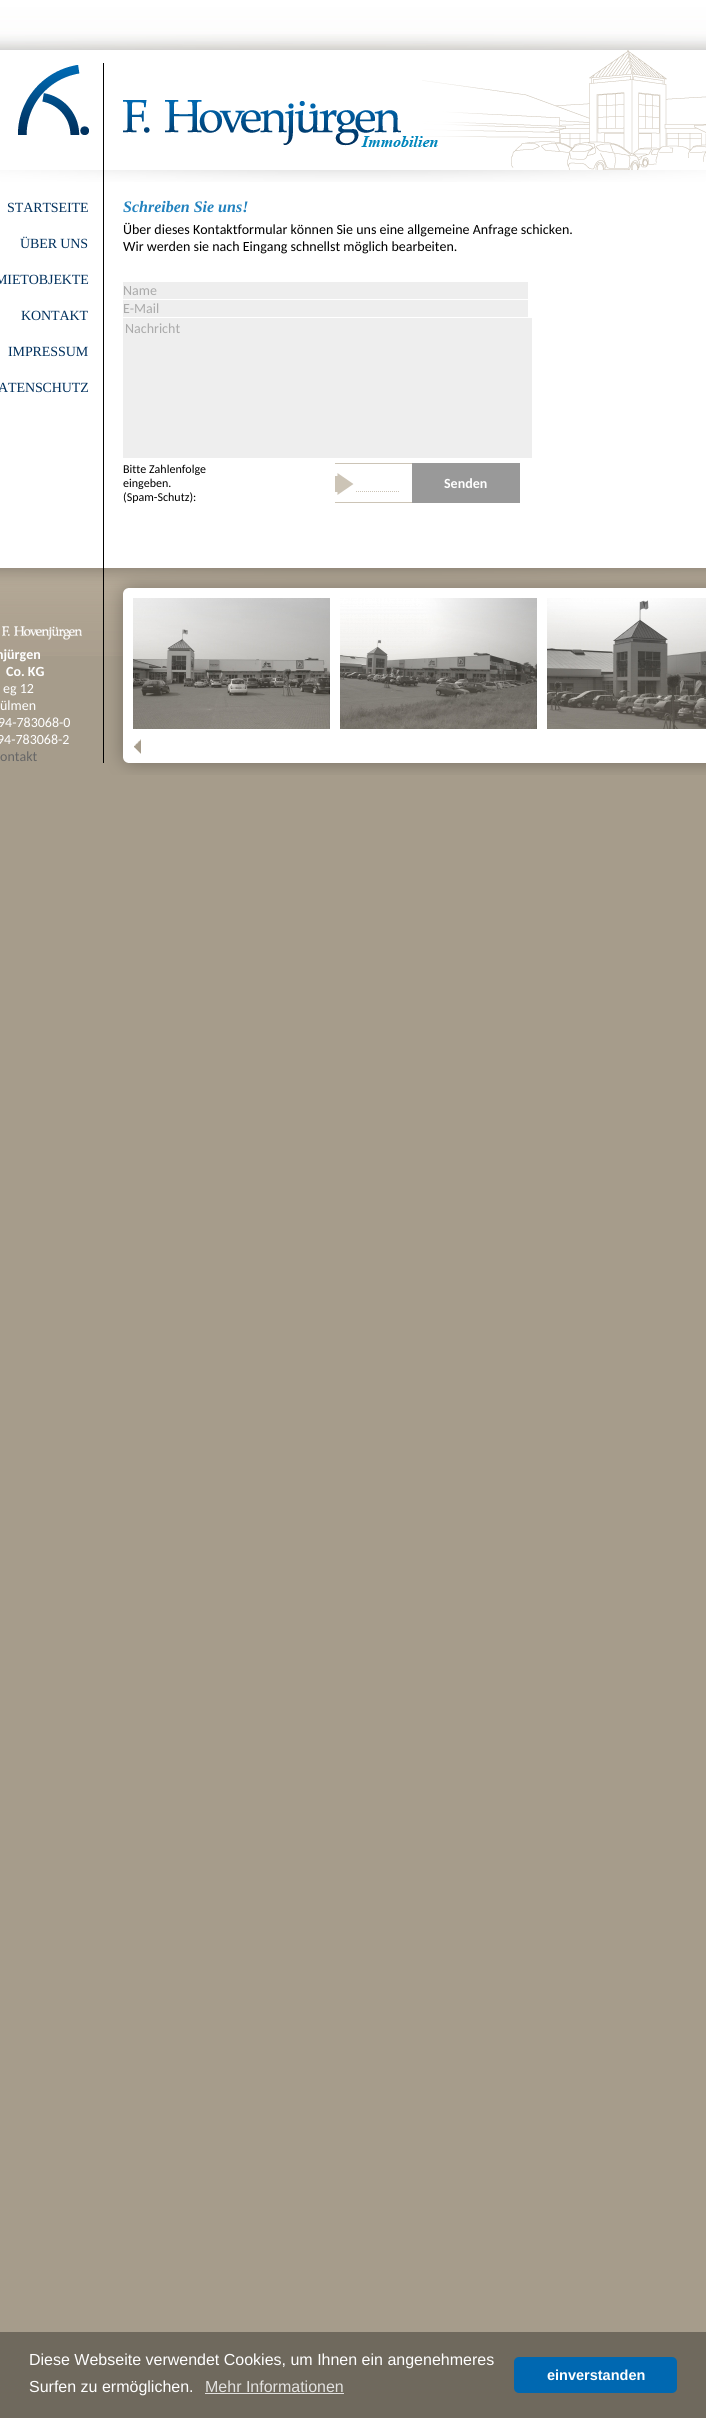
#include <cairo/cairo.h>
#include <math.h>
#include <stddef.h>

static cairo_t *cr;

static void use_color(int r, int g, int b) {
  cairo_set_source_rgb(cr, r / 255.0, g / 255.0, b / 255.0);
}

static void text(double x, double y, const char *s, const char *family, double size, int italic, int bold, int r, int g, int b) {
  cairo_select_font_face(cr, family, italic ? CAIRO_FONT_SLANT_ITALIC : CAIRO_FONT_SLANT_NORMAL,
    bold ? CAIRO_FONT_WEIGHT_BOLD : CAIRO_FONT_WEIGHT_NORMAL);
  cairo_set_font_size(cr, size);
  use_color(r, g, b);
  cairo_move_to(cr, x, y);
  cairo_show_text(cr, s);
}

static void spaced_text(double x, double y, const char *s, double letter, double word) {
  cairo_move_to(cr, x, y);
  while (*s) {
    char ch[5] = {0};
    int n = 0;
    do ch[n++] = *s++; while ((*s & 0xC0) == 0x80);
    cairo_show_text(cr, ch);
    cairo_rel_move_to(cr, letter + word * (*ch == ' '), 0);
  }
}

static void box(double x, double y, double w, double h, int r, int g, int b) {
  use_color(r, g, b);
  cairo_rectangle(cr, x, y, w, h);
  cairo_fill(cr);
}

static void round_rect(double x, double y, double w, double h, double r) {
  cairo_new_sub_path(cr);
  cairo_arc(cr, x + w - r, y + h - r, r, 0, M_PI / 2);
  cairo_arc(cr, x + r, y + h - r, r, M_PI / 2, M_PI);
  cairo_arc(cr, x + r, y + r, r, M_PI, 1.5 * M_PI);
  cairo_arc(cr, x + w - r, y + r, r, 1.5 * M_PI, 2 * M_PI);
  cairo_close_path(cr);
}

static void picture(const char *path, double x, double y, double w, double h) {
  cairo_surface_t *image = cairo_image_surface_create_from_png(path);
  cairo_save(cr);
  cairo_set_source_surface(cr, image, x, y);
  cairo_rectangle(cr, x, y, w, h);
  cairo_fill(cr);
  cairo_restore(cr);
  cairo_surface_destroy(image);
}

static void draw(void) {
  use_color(166, 156, 139);
  cairo_paint(cr);
  picture("img_01.png", 0, 0, 706, 656);
  picture("img_02.png", 0, 34, 706, 136);
  picture("img_03.png", 0, 182, 706, 366);
  picture("img_04.png", 0, 170, 706, 12);
  box(123, 282, 405, 17, 238, 238, 238);
  box(123, 300, 405, 17, 238, 238, 238);
  box(123, 318, 409, 140, 238, 238, 238);
  picture("img_05.png", 335, 463, 77, 40);
  box(412, 463, 108, 40, 153, 153, 153);
  picture("img_06.png", 0, 548, 706, 40);
  picture("img_11.png", 103, 588, 603, 187);
  picture("img_07.png", 133, 598, 197, 131);
  picture("img_08.png", 340, 598, 197, 131);
  picture("img_09.png", 547, 598, 159, 131);
  picture("img_10.png", 134, 739, 7, 15);
  picture("img_12.png", 2, 626, 80, 14);
  box(0, 2332, 706, 86, 111, 105, 93);
  box(205, 2393, 139, 1, 226, 225, 223);
  use_color(0, 104, 177);
  round_rect(514, 2357, 163, 36, 5);
  cairo_fill(cr);
  cairo_select_font_face(cr, "Liberation Serif", CAIRO_FONT_SLANT_NORMAL, CAIRO_FONT_WEIGHT_NORMAL);
  cairo_set_font_size(cr, 14);
  use_color(0, 48, 93);
  spaced_text(7, 212, "STARTSEITE", -0.1, 0);
  spaced_text(20, 248, "ÜBER UNS", -0.1, 0);
  spaced_text(-5, 284, "MIETOBJEKTE", -0.1, 0);
  spaced_text(21, 320, "KONTAKT", -0.1, 0);
  spaced_text(8, 356, "IMPRESSUM", -0.1, 0);
  spaced_text(-2, 392, "ATENSCHUTZ", -0.1, 0);
  text(123, 212, "Schreiben Sie uns!", "Liberation Serif", 16, 1, 1, 34, 130, 190);
  text(123, 234, "Über dieses Kontaktformular können Sie uns eine allgemeine Anfrage schicken.", "Carlito", 14, 0, 0, 0, 0, 0);
  text(123, 251, "Wir werden sie nach Eingang schnellst möglich bearbeiten.", "Carlito", 14, 0, 0, 0, 0, 0);
  text(123, 295, "Name", "Carlito", 14, 0, 0, 170, 170, 170);
  text(123, 313, "E-Mail", "Carlito", 14, 0, 0, 170, 170, 170);
  text(125, 333, "Nachricht", "Carlito", 14, 0, 0, 170, 170, 170);
  text(123, 473, "Bitte Zahlenfolge", "Carlito", 12, 0, 0, 0, 0, 0);
  text(123, 487, "eingeben.", "Carlito", 12, 0, 0, 0, 0, 0);
  text(123, 501, "(Spam-Schutz):", "Carlito", 12, 0, 0, 0, 0, 0);
  text(444, 488, "Senden", "Carlito", 14, 0, 1, 255, 255, 255);
  text(-4, 659, "njürgen", "Carlito", 14, 0, 1, 255, 255, 255);
  text(6, 676, "Co. KG", "Carlito", 14, 0, 1, 255, 255, 255);
  text(3, 693, "eg 12", "Carlito", 14, 0, 0, 255, 255, 255);
  text(0, 710, "ülmen", "Carlito", 14, 0, 0, 255, 255, 255);
  text(-2, 727, "94-783068-0", "Carlito", 14, 0, 0, 255, 255, 255);
  text(-3, 744, "94-783068-2", "Carlito", 14, 0, 0, 255, 255, 255);
  text(0, 761, "ontakt", "Carlito", 14, 0, 0, 102, 102, 102);
  text(29, 2365, "Diese Webseite verwendet Cookies, um Ihnen ein angenehmeres", "Liberation Sans", 16, 0, 0, 255, 255, 255);
  text(29, 2392, "Surfen zu ermöglichen.", "Liberation Sans", 16, 0, 0, 255, 255, 255);
  text(205, 2392, "Mehr Informationen", "Liberation Sans", 16, 0, 0, 226, 225, 223);
  text(547, 2380, "einverstanden", "Liberation Sans", 14.5, 0, 1, 255, 255, 255);
}

int main(void) {
  cairo_surface_t *surface = cairo_image_surface_create(CAIRO_FORMAT_RGB24, 706, 2418);
  cr = cairo_create(surface);
  cairo_font_options_t *options = cairo_font_options_create();
  cairo_font_options_set_hint_metrics(options, CAIRO_HINT_METRICS_OFF);
  cairo_font_options_set_hint_style(options, CAIRO_HINT_STYLE_NONE);
  cairo_set_font_options(cr, options);
  cairo_set_miter_limit(cr, 4);
  draw();
  cairo_surface_write_to_png(surface, "out.png");
  cairo_font_options_destroy(options);
  cairo_destroy(cr);
  cairo_surface_destroy(surface);
  return 0;
}
